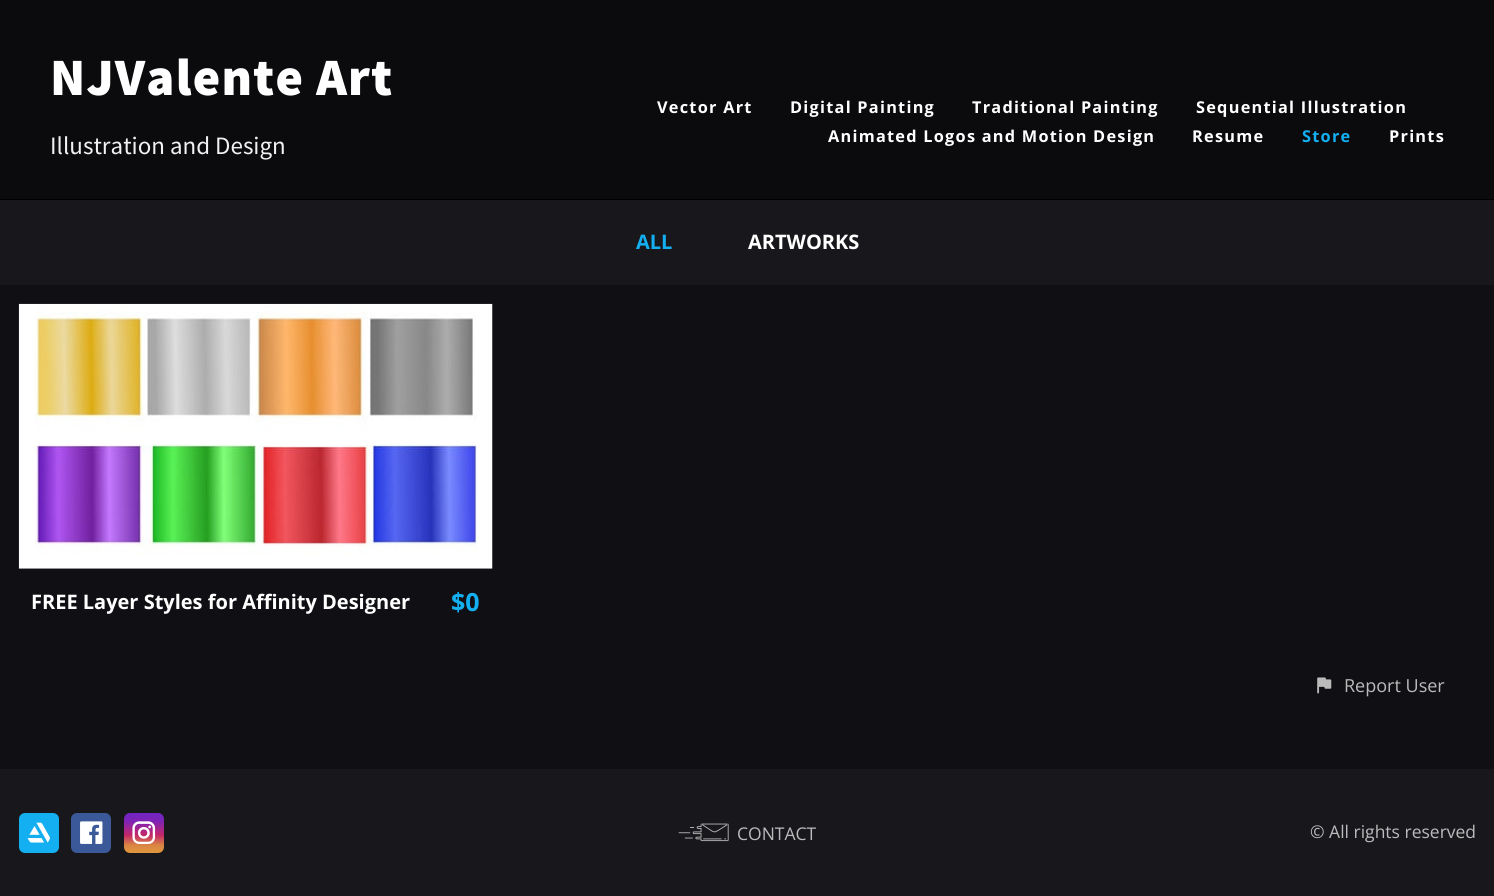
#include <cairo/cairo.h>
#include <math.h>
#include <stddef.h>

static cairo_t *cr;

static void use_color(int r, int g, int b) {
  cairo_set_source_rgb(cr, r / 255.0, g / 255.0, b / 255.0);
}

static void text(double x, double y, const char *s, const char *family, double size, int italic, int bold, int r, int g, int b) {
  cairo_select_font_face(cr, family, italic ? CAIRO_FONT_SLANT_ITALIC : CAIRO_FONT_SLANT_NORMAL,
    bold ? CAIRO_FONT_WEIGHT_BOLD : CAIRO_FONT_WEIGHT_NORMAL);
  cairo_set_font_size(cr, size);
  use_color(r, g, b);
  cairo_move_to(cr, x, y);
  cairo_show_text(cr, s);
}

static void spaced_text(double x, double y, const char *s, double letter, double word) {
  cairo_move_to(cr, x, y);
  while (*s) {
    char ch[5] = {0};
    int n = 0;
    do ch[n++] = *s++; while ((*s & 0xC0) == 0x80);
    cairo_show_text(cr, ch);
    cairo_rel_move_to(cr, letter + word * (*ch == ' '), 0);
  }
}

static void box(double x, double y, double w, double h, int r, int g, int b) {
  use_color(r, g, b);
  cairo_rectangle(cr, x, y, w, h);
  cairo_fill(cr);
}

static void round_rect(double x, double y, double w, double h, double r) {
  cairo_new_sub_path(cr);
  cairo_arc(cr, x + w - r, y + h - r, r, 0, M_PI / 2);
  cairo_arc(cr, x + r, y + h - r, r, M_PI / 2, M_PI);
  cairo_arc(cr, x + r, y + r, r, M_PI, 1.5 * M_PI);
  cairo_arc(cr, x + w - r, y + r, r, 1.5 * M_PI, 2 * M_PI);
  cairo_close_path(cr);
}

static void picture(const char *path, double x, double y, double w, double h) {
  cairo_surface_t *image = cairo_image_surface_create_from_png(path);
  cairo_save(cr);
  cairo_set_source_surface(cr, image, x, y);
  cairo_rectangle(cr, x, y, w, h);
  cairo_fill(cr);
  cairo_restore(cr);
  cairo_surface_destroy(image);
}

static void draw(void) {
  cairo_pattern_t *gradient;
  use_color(16, 16, 20);
  cairo_paint(cr);
  box(0, 0, 1494, 199, 11, 11, 14);
  box(0, 199, 1494, 1, 0, 0, 0);
  box(0, 200, 1494, 85, 24, 24, 28);
  picture("img_01.png", 18, 303, 475, 266);
  picture("img_02.png", 1317, 677, 15, 17);
  box(0, 769, 1494, 127, 24, 24, 28);
  use_color(19, 175, 240);
  round_rect(19, 813, 40, 40, 6);
  cairo_fill(cr);
  picture("img_03.png", 27, 822, 23, 21);
  use_color(59, 89, 153);
  round_rect(71, 813, 40, 40, 6);
  cairo_fill(cr);
  picture("img_04.png", 80, 821, 23, 23);
  gradient = cairo_pattern_create_linear(144, 853, 144, 813);
  cairo_pattern_add_color_stop_rgba(gradient, 0, 0.875, 0.6, 0.239, 1);
  cairo_pattern_add_color_stop_rgba(gradient, 0.2, 0.855, 0.518, 0.267, 1);
  cairo_pattern_add_color_stop_rgba(gradient, 0.45, 0.765, 0.153, 0.412, 1);
  cairo_pattern_add_color_stop_rgba(gradient, 0.79, 0.498, 0.141, 0.71, 1);
  cairo_pattern_add_color_stop_rgba(gradient, 1, 0.439, 0.141, 0.769, 1);
  cairo_set_source(cr, gradient);
  cairo_pattern_destroy(gradient);
  round_rect(124, 813, 40, 40, 6);
  cairo_fill(cr);
  picture("img_05.png", 132, 821, 24, 23);
  picture("img_06.png", 678, 823, 51, 19);
  cairo_select_font_face(cr, "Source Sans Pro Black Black", CAIRO_FONT_SLANT_NORMAL, CAIRO_FONT_WEIGHT_NORMAL);
  cairo_set_font_size(cr, 52.5);
  use_color(255, 255, 255);
  spaced_text(50, 95, "NJValente Art", 1.25, 0);
  text(50, 154, "Illustration and Design", "Source Sans Pro", 25, 0, 0, 241, 241, 241);
  cairo_select_font_face(cr, "Open Sans", CAIRO_FONT_SLANT_NORMAL, CAIRO_FONT_WEIGHT_BOLD);
  cairo_set_font_size(cr, 16.3);
  use_color(255, 255, 255);
  spaced_text(657, 113, "Vector Art", 1.25, 0);
  spaced_text(790, 113, "Digital Painting", 1.25, 0);
  spaced_text(972, 113, "Traditional Painting", 1.25, 0);
  spaced_text(1196, 113, "Sequential Illustration", 1.25, 0);
  spaced_text(828, 142, "Animated Logos and Motion Design", 1.25, 0);
  spaced_text(1192, 142, "Resume", 1.25, 0);
  use_color(19, 175, 240);
  spaced_text(1302, 142, "Store", 1.25, 0);
  use_color(255, 255, 255);
  spaced_text(1389, 142, "Prints", 1.25, 0);
  text(636, 249, "ALL", "Open Sans", 20, 0, 1, 19, 175, 240);
  text(748, 249, "ARTWORKS", "Open Sans", 20, 0, 1, 255, 255, 255);
  text(31, 609, "FREE Layer Styles for Affinity Designer", "Open Sans", 20, 0, 1, 255, 255, 255);
  text(451, 611, "$0", "Open Sans", 25, 0, 1, 19, 175, 240);
  text(1344, 692, "Report User", "Open Sans", 18, 0, 0, 187, 187, 187);
  text(737, 840, "CONTACT", "Open Sans", 17.5, 0, 0, 187, 187, 187);
  text(1310, 838, "© All rights reserved", "Open Sans", 17.5, 0, 0, 187, 187, 187);
}

int main(void) {
  cairo_surface_t *surface = cairo_image_surface_create(CAIRO_FORMAT_RGB24, 1494, 896);
  cr = cairo_create(surface);
  cairo_font_options_t *options = cairo_font_options_create();
  cairo_font_options_set_hint_metrics(options, CAIRO_HINT_METRICS_OFF);
  cairo_font_options_set_hint_style(options, CAIRO_HINT_STYLE_NONE);
  cairo_set_font_options(cr, options);
  cairo_set_miter_limit(cr, 4);
  draw();
  cairo_surface_write_to_png(surface, "out.png");
  cairo_font_options_destroy(options);
  cairo_destroy(cr);
  cairo_surface_destroy(surface);
  return 0;
}
